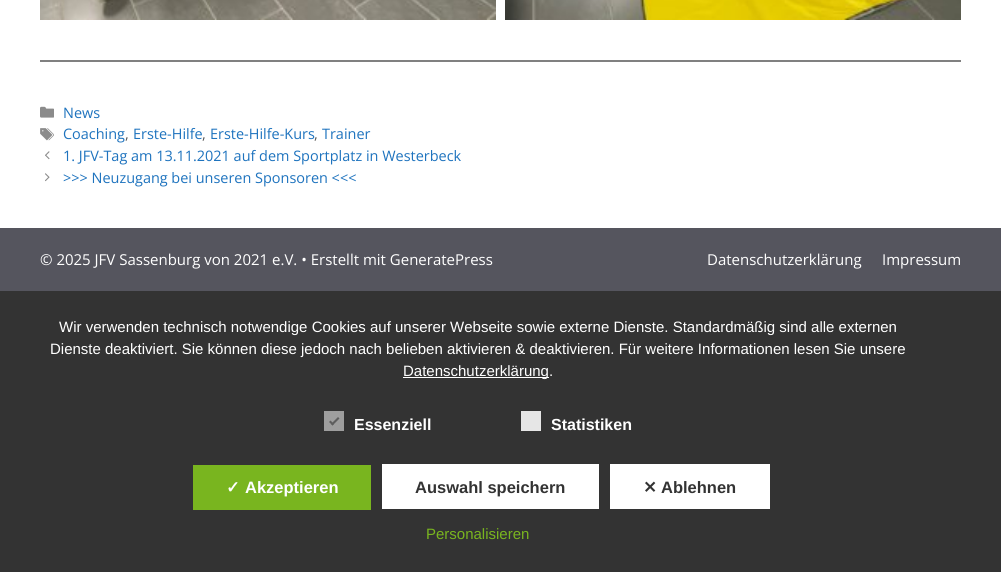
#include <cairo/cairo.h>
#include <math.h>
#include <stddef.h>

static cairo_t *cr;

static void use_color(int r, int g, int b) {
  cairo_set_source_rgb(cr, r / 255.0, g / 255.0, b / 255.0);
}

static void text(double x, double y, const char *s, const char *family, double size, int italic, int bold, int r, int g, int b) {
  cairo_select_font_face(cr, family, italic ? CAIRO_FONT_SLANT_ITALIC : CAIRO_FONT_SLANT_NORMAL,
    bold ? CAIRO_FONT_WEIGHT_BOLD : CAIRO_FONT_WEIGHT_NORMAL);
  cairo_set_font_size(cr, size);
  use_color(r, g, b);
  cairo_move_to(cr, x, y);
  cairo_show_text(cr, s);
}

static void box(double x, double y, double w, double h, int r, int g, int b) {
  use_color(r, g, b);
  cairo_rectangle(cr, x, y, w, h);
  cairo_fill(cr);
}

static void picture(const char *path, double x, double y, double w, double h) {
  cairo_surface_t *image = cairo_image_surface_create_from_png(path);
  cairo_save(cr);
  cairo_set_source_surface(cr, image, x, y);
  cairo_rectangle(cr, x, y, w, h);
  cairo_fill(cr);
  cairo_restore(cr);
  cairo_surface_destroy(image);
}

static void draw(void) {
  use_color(255, 255, 255);
  cairo_paint(cr);
  picture("img_01.png", 40, 0, 456, 20);
  picture("img_02.png", 505, 0, 456, 20);
  box(40, 60, 921, 2, 128, 128, 128);
  picture("img_03.png", 40, 106, 14, 12);
  picture("img_04.png", 40, 128, 14, 13);
  picture("img_05.png", 45, 151, 5, 9);
  picture("img_06.png", 45, 173, 5, 9);
  box(0, 228, 1001, 63, 85, 85, 94);
  box(0, 291, 1001, 281, 51, 51, 51);
  box(403, 377, 146, 1, 255, 255, 255);
  box(324, 411, 20, 20, 158, 158, 158);
  use_color(94, 94, 94);
  cairo_new_path(cr);
  cairo_move_to(cr, 338, 417);
  cairo_line_to(cr, 339.5, 418.5);
  cairo_line_to(cr, 332.5, 425.5);
  cairo_line_to(cr, 331, 424);
  cairo_close_path(cr);
  cairo_fill(cr);
  cairo_new_path(cr);
  cairo_move_to(cr, 330.5, 420.5);
  cairo_line_to(cr, 334, 424);
  cairo_line_to(cr, 332.5, 425.5);
  cairo_line_to(cr, 329, 422);
  cairo_close_path(cr);
  cairo_fill(cr);
  box(521, 411, 20, 20, 230, 230, 230);
  box(193, 465, 178, 45, 121, 181, 31);
  box(382, 464, 217, 45, 255, 255, 255);
  box(610, 464, 160, 45, 255, 255, 255);
  text(63, 118, "News", "Open Sans", 14.45, 0, 0, 30, 115, 190);
  text(63, 139, "Coaching", "Open Sans", 14.45, 0, 0, 30, 115, 190);
  text(125, 139, ",", "Open Sans", 14.45, 0, 0, 89, 89, 89);
  text(133, 139, "Erste-Hilfe", "Open Sans", 14.45, 0, 0, 30, 115, 190);
  text(202, 139, ",", "Open Sans", 14.45, 0, 0, 89, 89, 89);
  text(210, 139, "Erste-Hilfe-Kurs", "Open Sans", 14.45, 0, 0, 30, 115, 190);
  text(314, 139, ",", "Open Sans", 14.45, 0, 0, 89, 89, 89);
  text(322, 139, "Trainer", "Open Sans", 14.45, 0, 0, 30, 115, 190);
  text(63, 161, "1. JFV-Tag am 13.11.2021 auf dem Sportplatz in Westerbeck", "Open Sans", 14.45, 0, 0, 30, 115, 190);
  text(63, 183, ">>> Neuzugang bei unseren Sponsoren <<<", "Open Sans", 14.45, 0, 0, 30, 115, 190);
  text(40, 265, "© 2025 JFV Sassenburg von 2021 e.V. • Erstellt mit GeneratePress", "Open Sans", 15, 0, 0, 255, 255, 255);
  text(707, 265, "Datenschutzerklärung", "Open Sans", 15, 0, 0, 255, 255, 255);
  text(882, 265, "Impressum", "Open Sans", 15, 0, 0, 255, 255, 255);
  text(59, 332, "Wir verwenden technisch notwendige Cookies auf unserer Webseite sowie externe Dienste. Standardmäßig sind alle externen", "Liberation Sans", 15, 0, 0, 255, 255, 255);
  text(50, 354, "Dienste deaktiviert. Sie können diese jedoch nach belieben aktivieren & deaktivieren. Für weitere Informationen lesen Sie unsere", "Liberation Sans", 15, 0, 0, 255, 255, 255);
  text(403, 376, "Datenschutzerklärung.", "Liberation Sans", 15, 0, 0, 255, 255, 255);
  text(354, 430, "Essenziell", "Liberation Sans", 16, 0, 1, 255, 255, 255);
  text(551, 430, "Statistiken", "Liberation Sans", 16, 0, 1, 255, 255, 255);
  text(226, 493, "✓", "DejaVu Sans", 16.5, 0, 1, 255, 255, 255);
  text(245, 493, "Akzeptieren", "Liberation Sans", 16.5, 0, 1, 255, 255, 255);
  text(415, 493, "Auswahl speichern", "Liberation Sans", 16.5, 0, 1, 51, 51, 51);
  text(643, 493, "✕", "DejaVu Sans", 16.5, 0, 1, 51, 51, 51);
  text(661, 493, "Ablehnen", "Liberation Sans", 16.5, 0, 1, 51, 51, 51);
  text(426, 539, "Personalisieren", "Liberation Sans", 15, 0, 0, 121, 181, 31);
}

int main(void) {
  cairo_surface_t *surface = cairo_image_surface_create(CAIRO_FORMAT_RGB24, 1001, 572);
  cr = cairo_create(surface);
  cairo_font_options_t *options = cairo_font_options_create();
  cairo_font_options_set_hint_metrics(options, CAIRO_HINT_METRICS_OFF);
  cairo_font_options_set_hint_style(options, CAIRO_HINT_STYLE_NONE);
  cairo_set_font_options(cr, options);
  cairo_set_miter_limit(cr, 4);
  draw();
  cairo_surface_write_to_png(surface, "out.png");
  cairo_font_options_destroy(options);
  cairo_destroy(cr);
  cairo_surface_destroy(surface);
  return 0;
}
